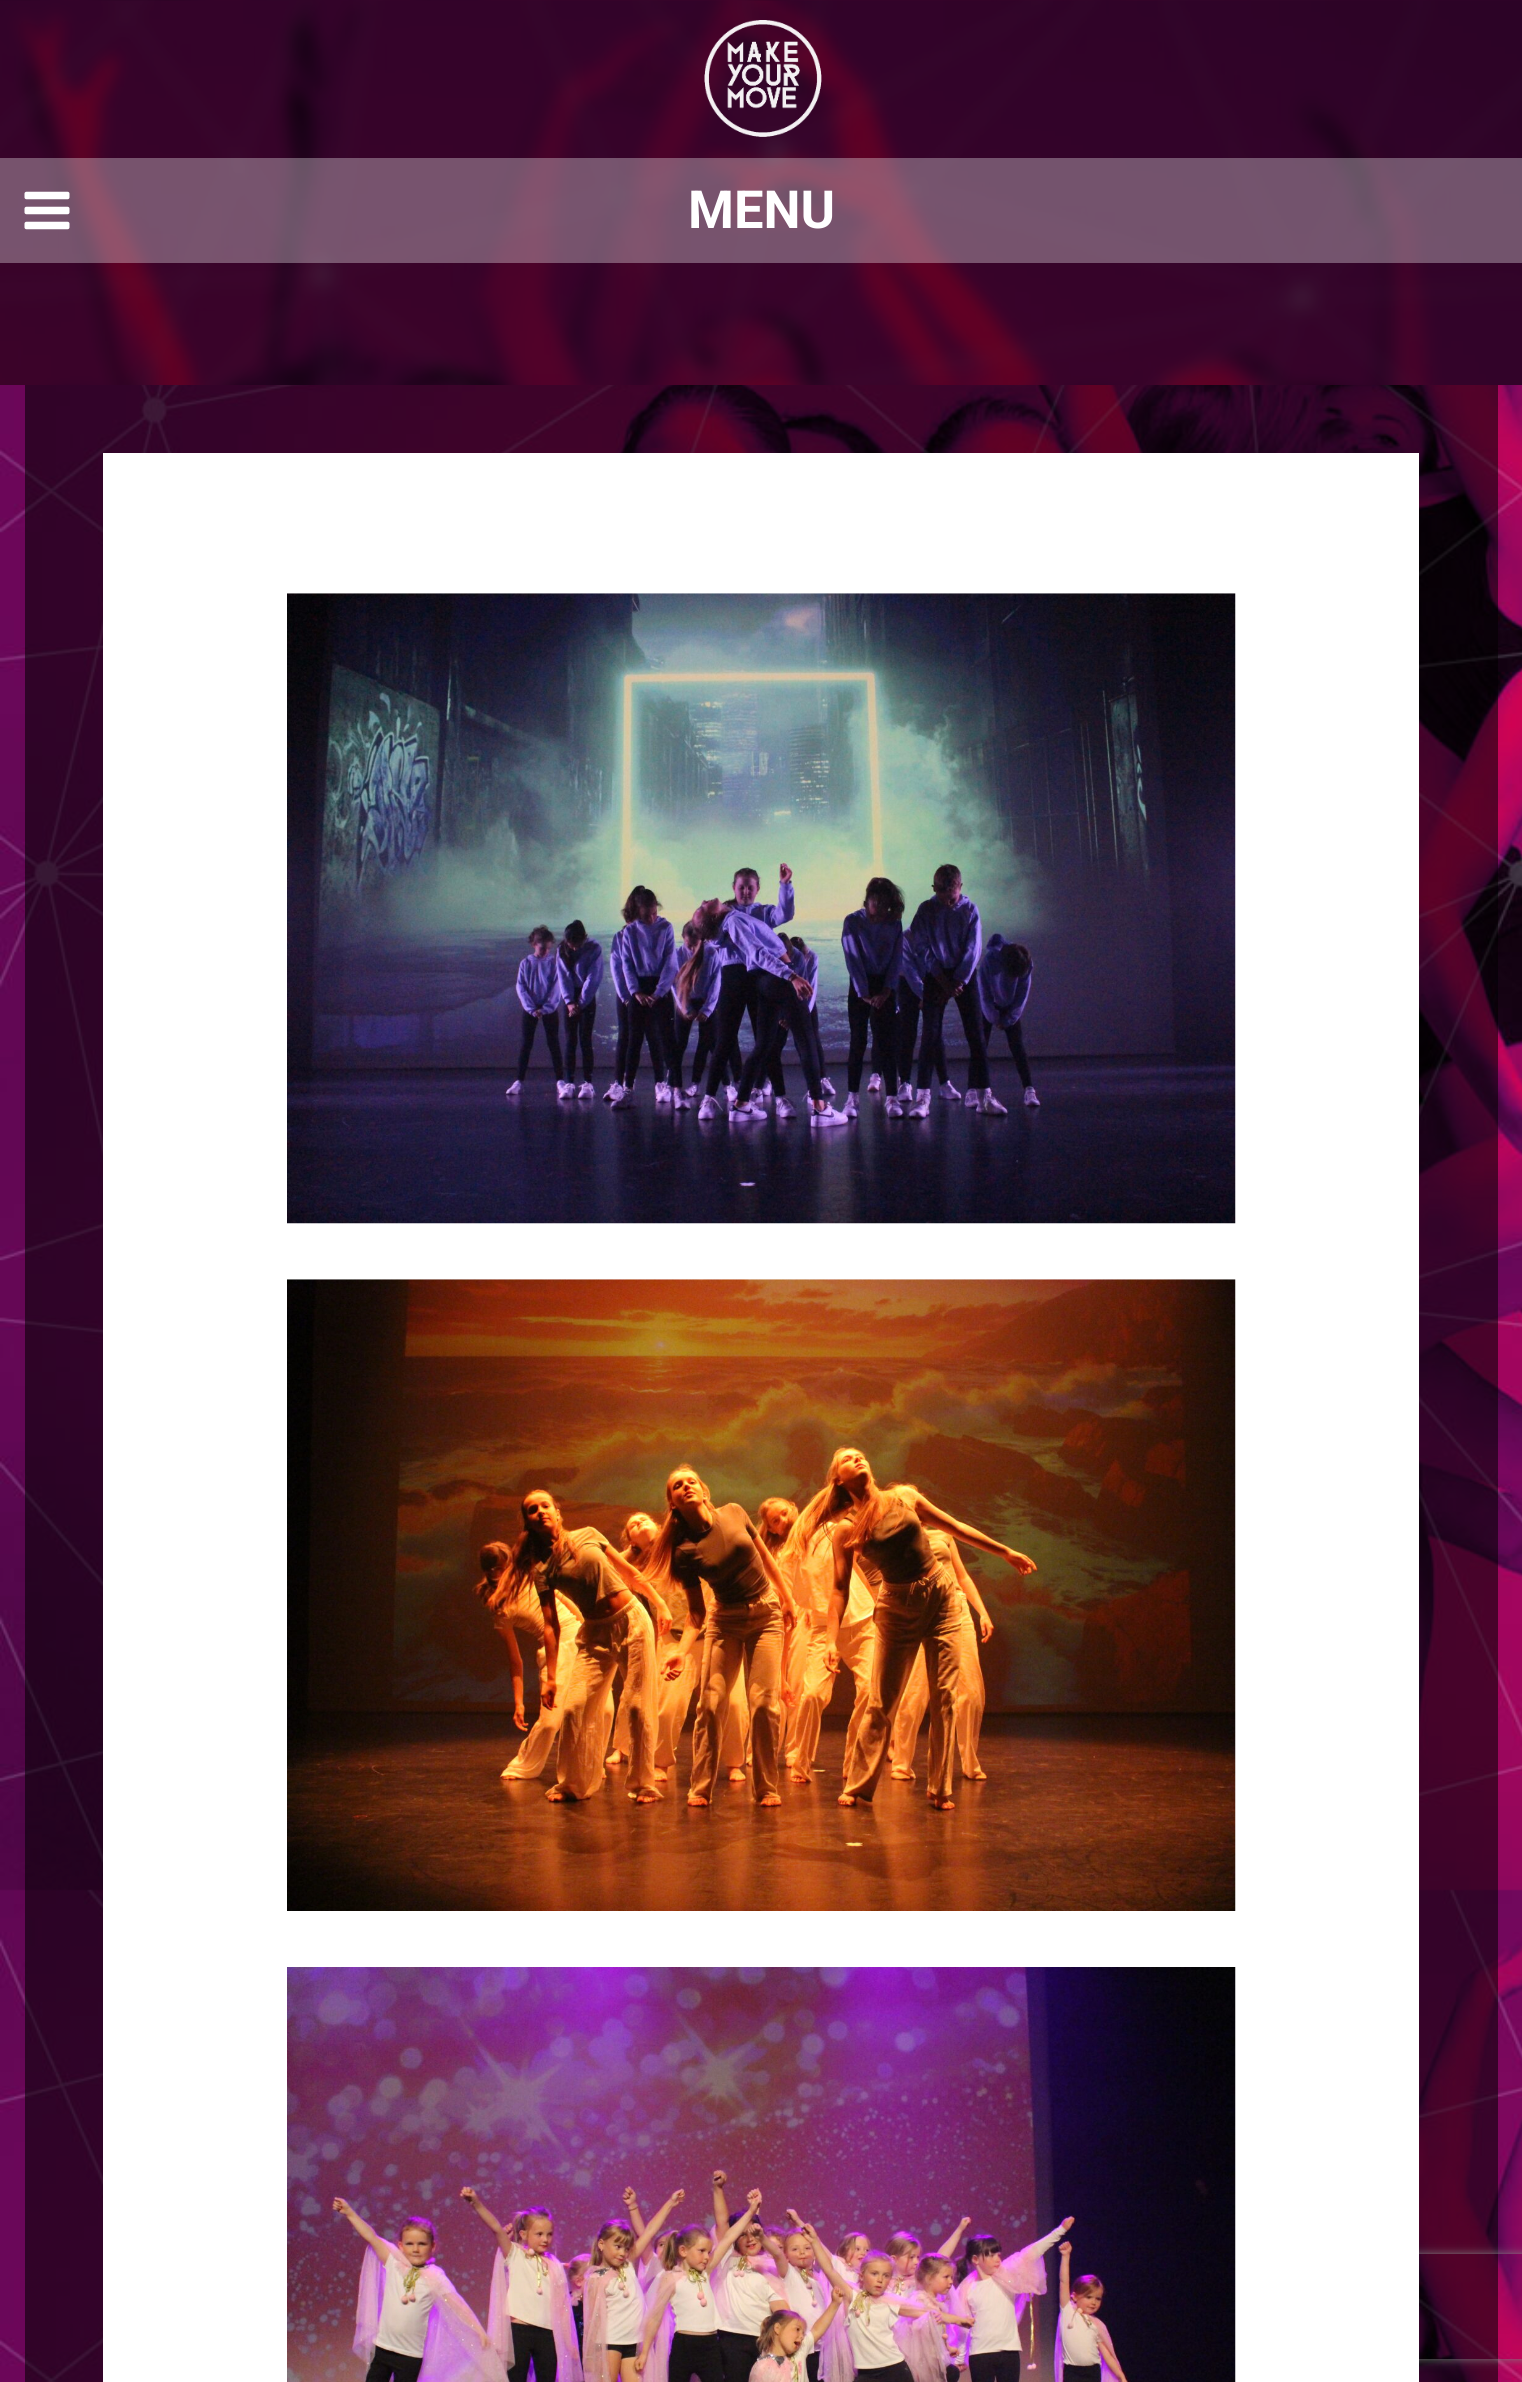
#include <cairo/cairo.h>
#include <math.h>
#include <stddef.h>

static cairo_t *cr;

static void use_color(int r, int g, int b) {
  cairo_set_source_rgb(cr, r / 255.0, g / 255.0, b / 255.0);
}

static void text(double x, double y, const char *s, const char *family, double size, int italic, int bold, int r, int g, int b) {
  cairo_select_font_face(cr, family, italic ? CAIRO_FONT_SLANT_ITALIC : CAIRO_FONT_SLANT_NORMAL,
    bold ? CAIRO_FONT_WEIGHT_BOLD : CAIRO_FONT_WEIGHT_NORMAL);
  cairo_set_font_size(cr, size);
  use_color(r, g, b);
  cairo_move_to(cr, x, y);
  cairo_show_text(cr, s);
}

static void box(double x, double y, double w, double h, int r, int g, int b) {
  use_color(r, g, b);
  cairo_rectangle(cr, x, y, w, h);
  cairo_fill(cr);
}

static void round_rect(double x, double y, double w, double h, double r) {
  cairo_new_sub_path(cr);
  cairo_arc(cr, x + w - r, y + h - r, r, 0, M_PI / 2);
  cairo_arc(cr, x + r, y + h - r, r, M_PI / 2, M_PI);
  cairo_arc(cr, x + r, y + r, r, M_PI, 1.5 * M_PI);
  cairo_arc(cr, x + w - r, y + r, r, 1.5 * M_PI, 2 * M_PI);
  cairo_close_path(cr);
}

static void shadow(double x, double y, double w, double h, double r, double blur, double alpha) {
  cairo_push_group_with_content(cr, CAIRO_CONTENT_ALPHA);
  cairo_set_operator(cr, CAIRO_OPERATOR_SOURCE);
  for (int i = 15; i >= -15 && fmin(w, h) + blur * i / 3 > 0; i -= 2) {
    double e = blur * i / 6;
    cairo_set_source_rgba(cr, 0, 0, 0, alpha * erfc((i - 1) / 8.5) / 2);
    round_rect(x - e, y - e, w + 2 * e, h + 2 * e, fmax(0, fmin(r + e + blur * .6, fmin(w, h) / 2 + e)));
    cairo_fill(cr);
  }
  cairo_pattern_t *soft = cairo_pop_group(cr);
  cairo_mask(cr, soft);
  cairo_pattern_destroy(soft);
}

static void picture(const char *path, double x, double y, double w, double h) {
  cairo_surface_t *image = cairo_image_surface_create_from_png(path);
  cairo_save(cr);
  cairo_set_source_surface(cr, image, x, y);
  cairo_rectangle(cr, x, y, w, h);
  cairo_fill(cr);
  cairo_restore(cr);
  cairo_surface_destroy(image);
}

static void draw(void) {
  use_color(255, 255, 255);
  cairo_paint(cr);
  picture("img_01.png", 0, 385, 1522, 1997);
  picture("img_02.png", 0, 0, 1522, 385);
  picture("img_03.png", 704, 20, 118, 117);
  cairo_set_source_rgba(cr, 1, 1, 1, 0.32);
  cairo_rectangle(cr, 0, 158, 1522, 105);
  cairo_fill(cr);
  picture("img_04.png", 24, 191, 46, 39);
  cairo_set_source_rgba(cr, 0, 0, 0, 0.55);
  cairo_rectangle(cr, 25, 385, 1473, 1997);
  cairo_fill(cr);
  cairo_save(cr);
  cairo_set_fill_rule(cr, CAIRO_FILL_RULE_EVEN_ODD);
  cairo_new_path(cr);
  cairo_move_to(cr, 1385, 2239);
  cairo_line_to(cr, 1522, 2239);
  cairo_line_to(cr, 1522, 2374);
  cairo_line_to(cr, 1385, 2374);
  cairo_close_path(cr);
  cairo_move_to(cr, 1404, 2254);
  cairo_line_to(cr, 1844, 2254);
  cairo_curve_to(cr, 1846, 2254, 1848, 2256, 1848, 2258);
  cairo_line_to(cr, 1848, 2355);
  cairo_curve_to(cr, 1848, 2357, 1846, 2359, 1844, 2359);
  cairo_line_to(cr, 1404, 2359);
  cairo_curve_to(cr, 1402, 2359, 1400, 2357, 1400, 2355);
  cairo_line_to(cr, 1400, 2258);
  cairo_curve_to(cr, 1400, 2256, 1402, 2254, 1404, 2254);
  cairo_close_path(cr);
  cairo_clip(cr);
  use_color(128, 128, 128);
  shadow(1400, 2254, 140, 105, 4, 4.5, 1);
  cairo_restore(cr);
  box(103, 453, 1316, 1929, 255, 255, 255);
  picture("img_05.png", 287, 593, 949, 631);
  picture("img_06.png", 287, 1279, 949, 632);
  picture("img_07.png", 287, 1967, 949, 415);
  text(688, 228, "MENU", "Roboto", 52.5, 0, 1, 255, 255, 255);
}

int main(void) {
  cairo_surface_t *surface = cairo_image_surface_create(CAIRO_FORMAT_RGB24, 1522, 2382);
  cr = cairo_create(surface);
  cairo_font_options_t *options = cairo_font_options_create();
  cairo_font_options_set_hint_metrics(options, CAIRO_HINT_METRICS_OFF);
  cairo_font_options_set_hint_style(options, CAIRO_HINT_STYLE_NONE);
  cairo_set_font_options(cr, options);
  cairo_set_miter_limit(cr, 4);
  draw();
  cairo_surface_write_to_png(surface, "out.png");
  cairo_font_options_destroy(options);
  cairo_destroy(cr);
  cairo_surface_destroy(surface);
  return 0;
}
